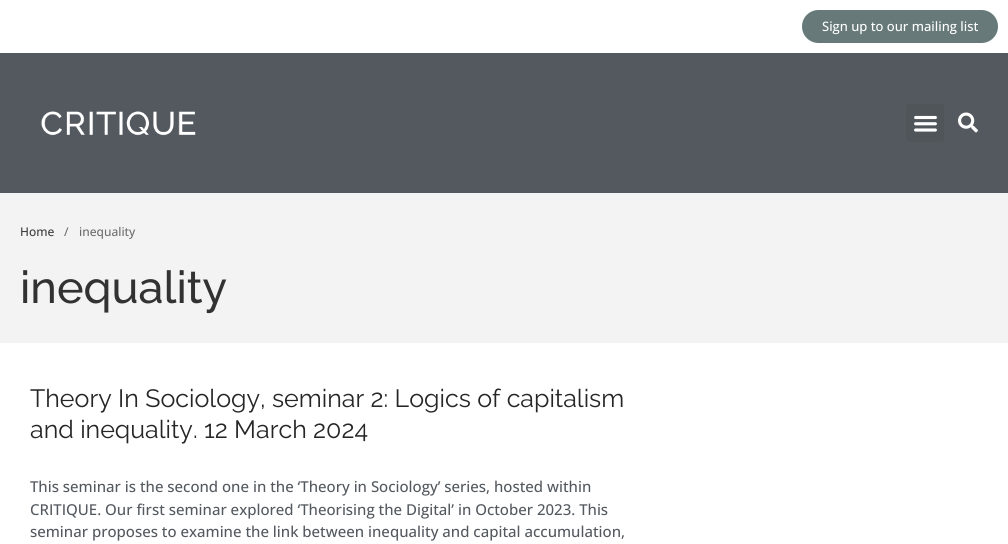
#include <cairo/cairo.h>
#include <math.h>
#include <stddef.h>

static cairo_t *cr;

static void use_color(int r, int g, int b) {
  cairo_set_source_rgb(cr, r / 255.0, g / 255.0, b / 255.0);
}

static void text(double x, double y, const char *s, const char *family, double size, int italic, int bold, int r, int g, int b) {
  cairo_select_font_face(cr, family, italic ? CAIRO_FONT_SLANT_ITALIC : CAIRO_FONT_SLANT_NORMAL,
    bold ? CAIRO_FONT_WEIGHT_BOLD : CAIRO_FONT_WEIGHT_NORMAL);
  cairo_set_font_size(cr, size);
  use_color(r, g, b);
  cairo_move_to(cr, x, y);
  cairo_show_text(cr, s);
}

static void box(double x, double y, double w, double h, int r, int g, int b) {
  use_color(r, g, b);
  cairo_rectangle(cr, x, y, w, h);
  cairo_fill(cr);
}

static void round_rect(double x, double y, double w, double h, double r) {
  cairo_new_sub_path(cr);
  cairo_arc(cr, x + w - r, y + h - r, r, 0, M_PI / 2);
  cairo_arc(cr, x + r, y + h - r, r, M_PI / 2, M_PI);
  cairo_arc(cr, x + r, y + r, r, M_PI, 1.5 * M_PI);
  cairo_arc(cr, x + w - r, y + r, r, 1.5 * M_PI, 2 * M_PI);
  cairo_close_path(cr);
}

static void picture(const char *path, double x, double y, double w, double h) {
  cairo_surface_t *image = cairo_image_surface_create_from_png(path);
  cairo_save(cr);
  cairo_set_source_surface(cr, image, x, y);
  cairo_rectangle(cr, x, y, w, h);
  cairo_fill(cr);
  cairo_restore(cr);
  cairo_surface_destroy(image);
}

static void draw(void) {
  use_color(255, 255, 255);
  cairo_paint(cr);
  use_color(103, 121, 121);
  round_rect(802, 10, 196, 33, 16.5);
  cairo_fill(cr);
  box(0, 53, 1008, 140, 84, 89, 95);
  picture("img_01.png", 41, 111, 155, 25);
  use_color(80, 85, 90);
  round_rect(906, 104, 38, 38, 3);
  cairo_fill(cr);
  picture("img_02.png", 914, 115, 23, 17);
  picture("img_03.png", 958, 112, 20, 21);
  box(0, 193, 1008, 150, 243, 243, 243);
  text(822, 31, "Sign up to our mailing list", "Open Sans Medium", 13, 0, 0, 255, 255, 255);
  text(20, 236, "Home", "Open Sans Medium", 12, 0, 0, 61, 61, 61);
  text(64, 236, "/", "Open Sans Medium", 12, 0, 0, 109, 109, 109);
  text(79, 236, "inequality", "Open Sans Medium", 12, 0, 0, 109, 109, 109);
  text(20, 303, "inequality", "Raleway Medium", 45, 0, 0, 50, 50, 50);
  text(30, 407, "Theory In Sociology, seminar 2: Logics of capitalism", "Raleway", 25, 0, 0, 38, 38, 38);
  text(30, 438, "and inequality. 12 March 2024", "Raleway", 25, 0, 0, 38, 38, 38);
  text(30, 492, "This seminar is the second one in the ‘Theory in Sociology’ series, hosted within", "Open Sans Medium", 15, 0, 0, 84, 89, 95);
  text(30, 515, "CRITIQUE. Our first seminar explored ‘Theorising the Digital’ in October 2023. This", "Open Sans Medium", 15, 0, 0, 84, 89, 95);
  text(30, 537, "seminar proposes to examine the link between inequality and capital accumulation,", "Open Sans Medium", 15, 0, 0, 84, 89, 95);
}

int main(void) {
  cairo_surface_t *surface = cairo_image_surface_create(CAIRO_FORMAT_RGB24, 1008, 544);
  cr = cairo_create(surface);
  cairo_font_options_t *options = cairo_font_options_create();
  cairo_font_options_set_hint_metrics(options, CAIRO_HINT_METRICS_OFF);
  cairo_font_options_set_hint_style(options, CAIRO_HINT_STYLE_NONE);
  cairo_set_font_options(cr, options);
  cairo_set_miter_limit(cr, 4);
  draw();
  cairo_surface_write_to_png(surface, "out.png");
  cairo_font_options_destroy(options);
  cairo_destroy(cr);
  cairo_surface_destroy(surface);
  return 0;
}
